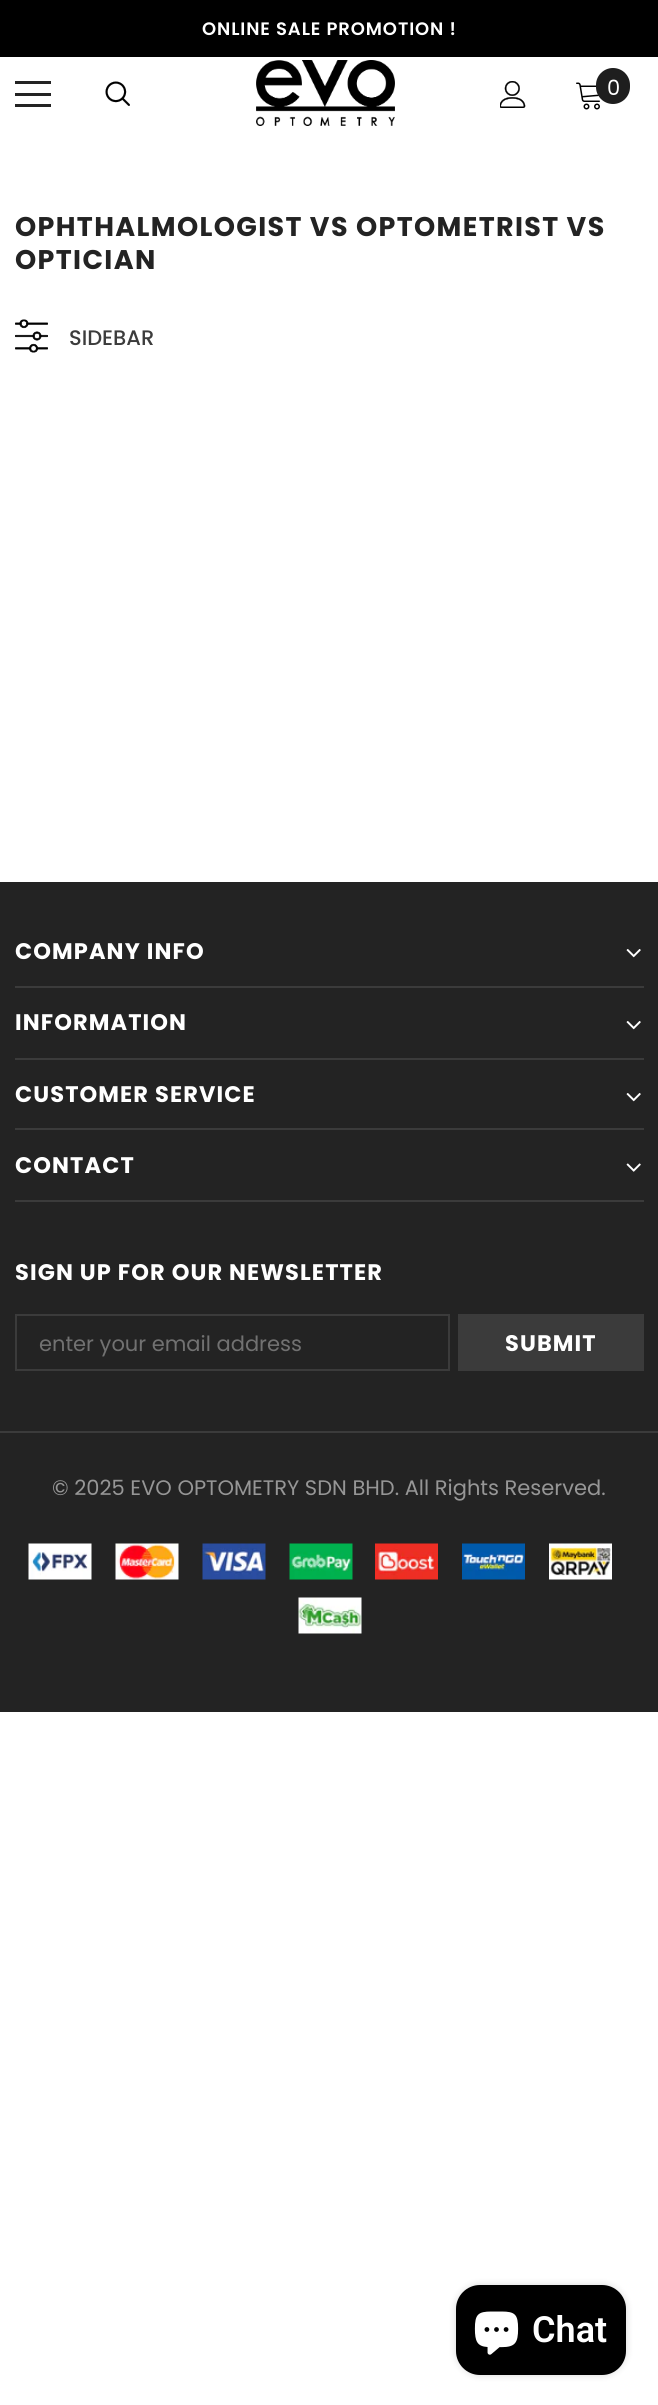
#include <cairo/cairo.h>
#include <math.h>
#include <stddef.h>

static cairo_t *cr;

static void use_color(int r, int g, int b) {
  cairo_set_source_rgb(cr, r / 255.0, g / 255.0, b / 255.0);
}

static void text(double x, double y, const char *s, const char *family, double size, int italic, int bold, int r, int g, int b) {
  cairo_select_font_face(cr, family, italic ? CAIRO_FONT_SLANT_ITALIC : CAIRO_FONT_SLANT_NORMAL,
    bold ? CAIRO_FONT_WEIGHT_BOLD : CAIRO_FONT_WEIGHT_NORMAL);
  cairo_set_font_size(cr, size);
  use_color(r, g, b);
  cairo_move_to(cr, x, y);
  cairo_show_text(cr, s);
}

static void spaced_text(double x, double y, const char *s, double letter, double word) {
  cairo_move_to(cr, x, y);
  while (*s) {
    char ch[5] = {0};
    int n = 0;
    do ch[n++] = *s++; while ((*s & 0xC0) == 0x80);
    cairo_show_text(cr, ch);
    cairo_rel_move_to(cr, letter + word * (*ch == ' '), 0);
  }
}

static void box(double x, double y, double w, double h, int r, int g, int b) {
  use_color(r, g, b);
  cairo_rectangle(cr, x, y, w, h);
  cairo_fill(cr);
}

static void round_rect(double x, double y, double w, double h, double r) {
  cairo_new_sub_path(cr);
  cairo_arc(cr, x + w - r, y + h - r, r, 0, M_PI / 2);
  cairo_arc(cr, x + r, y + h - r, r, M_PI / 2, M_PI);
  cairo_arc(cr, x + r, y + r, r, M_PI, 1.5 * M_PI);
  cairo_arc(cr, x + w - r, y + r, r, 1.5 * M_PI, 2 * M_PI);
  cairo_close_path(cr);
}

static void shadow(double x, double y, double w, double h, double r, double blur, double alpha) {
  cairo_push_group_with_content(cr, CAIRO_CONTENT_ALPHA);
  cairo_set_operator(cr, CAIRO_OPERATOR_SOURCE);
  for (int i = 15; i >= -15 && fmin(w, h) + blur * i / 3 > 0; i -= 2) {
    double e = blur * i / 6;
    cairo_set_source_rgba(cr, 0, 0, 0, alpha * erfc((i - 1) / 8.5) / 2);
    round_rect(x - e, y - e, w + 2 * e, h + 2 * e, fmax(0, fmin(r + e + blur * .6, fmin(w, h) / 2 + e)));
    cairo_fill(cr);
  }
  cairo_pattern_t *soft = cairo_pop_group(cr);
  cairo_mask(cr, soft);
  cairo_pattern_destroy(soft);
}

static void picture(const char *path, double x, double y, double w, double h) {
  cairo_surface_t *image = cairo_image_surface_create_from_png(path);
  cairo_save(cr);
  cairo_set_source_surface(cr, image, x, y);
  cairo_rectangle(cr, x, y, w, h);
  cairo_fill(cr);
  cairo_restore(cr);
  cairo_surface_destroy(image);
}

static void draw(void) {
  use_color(255, 255, 255);
  cairo_paint(cr);
  box(0, 0, 658, 57, 0, 0, 0);
  box(15, 81, 36, 3, 35, 35, 35);
  box(15, 93, 36, 3, 35, 35, 35);
  box(15, 104, 36, 3, 35, 35, 35);
  picture("img_01.png", 105, 81, 25, 25);
  picture("img_02.png", 256, 60, 139, 66);
  picture("img_03.png", 500, 81, 26, 27);
  picture("img_04.png", 576, 82, 24, 28);
  use_color(30, 30, 30);
  round_rect(596, 68, 34, 36, 17);
  cairo_fill(cr);
  picture("img_05.png", 15, 319, 33, 34);
  box(0, 882, 658, 830, 35, 35, 35);
  box(15, 986, 629, 2, 59, 59, 59);
  picture("img_06.png", 626, 949, 15, 9);
  box(15, 1058, 629, 2, 59, 59, 59);
  picture("img_06.png", 626, 1021, 15, 9);
  box(15, 1128, 629, 2, 59, 59, 59);
  picture("img_06.png", 626, 1093, 15, 9);
  box(15, 1200, 629, 2, 59, 59, 59);
  picture("img_07.png", 626, 1163, 15, 9);
  cairo_rectangle(cr, 16, 1315, 433, 55);
  cairo_stroke(cr);
  box(458, 1314, 186, 57, 59, 59, 59);
  box(0, 1431, 658, 2, 59, 59, 59);
  picture("img_08.png", 28, 1543, 64, 37);
  picture("img_09.png", 115, 1543, 64, 37);
  picture("img_10.png", 202, 1543, 64, 37);
  picture("img_11.png", 289, 1543, 64, 37);
  picture("img_12.png", 375, 1543, 63, 37);
  picture("img_13.png", 462, 1543, 63, 37);
  picture("img_14.png", 549, 1543, 63, 37);
  picture("img_15.png", 298, 1597, 64, 37);
  use_color(0, 0, 0);
  shadow(456, 2285, 170, 90, 24, 4, 0.15);
  use_color(0, 0, 0);
  round_rect(456, 2285, 170, 90, 24);
  cairo_fill(cr);
  picture("img_16.png", 474, 2311, 45, 44);
  cairo_select_font_face(cr, "Poppins SemiBold", CAIRO_FONT_SLANT_NORMAL, CAIRO_FONT_WEIGHT_NORMAL);
  cairo_set_font_size(cr, 18);
  use_color(255, 255, 255);
  spaced_text(202, 35, "ONLINE SALE PROMOTION !", 0.9, 0);
  text(607, 95, "0", "Poppins", 21, 0, 0, 255, 255, 255);
  cairo_select_font_face(cr, "Poppins", CAIRO_FONT_SLANT_NORMAL, CAIRO_FONT_WEIGHT_BOLD);
  cairo_set_font_size(cr, 27);
  use_color(35, 35, 35);
  spaced_text(15, 236, "OPHTHALMOLOGIST VS OPTOMETRIST VS", 1.35, 0);
  spaced_text(15, 269, "OPTICIAN", 1.35, 0);
  text(69, 345, "SIDEBAR", "Poppins Medium", 21, 0, 0, 60, 60, 60);
  cairo_select_font_face(cr, "Poppins", CAIRO_FONT_SLANT_NORMAL, CAIRO_FONT_WEIGHT_BOLD);
  cairo_set_font_size(cr, 22.5);
  use_color(255, 255, 255);
  spaced_text(15, 959, "COMPANY INFO", 1.1, 0);
  spaced_text(15, 1030, "INFORMATION", 1.1, 0);
  spaced_text(15, 1102, "CUSTOMER SERVICE", 1.1, 0);
  spaced_text(15, 1173, "CONTACT", 1.1, 0);
  spaced_text(15, 1280, "SIGN UP FOR OUR NEWSLETTER", 1.1, 0);
  text(39, 1351, "enter your email address", "Poppins", 21, 0, 0, 113, 113, 113);
  cairo_select_font_face(cr, "Poppins", CAIRO_FONT_SLANT_NORMAL, CAIRO_FONT_WEIGHT_BOLD);
  cairo_set_font_size(cr, 22.5);
  use_color(255, 255, 255);
  spaced_text(505, 1351, "SUBMIT", 1.1, 0);
  text(52, 1495, "© 2025 EVO OPTOMETRY SDN BHD. All Rights Reserved.", "Poppins", 21, 0, 0, 150, 150, 150);
  text(532, 2342, "Chat", "Roboto SemiBold", 36, 0, 0, 255, 255, 255);
}

int main(void) {
  cairo_surface_t *surface = cairo_image_surface_create(CAIRO_FORMAT_RGB24, 658, 2405);
  cr = cairo_create(surface);
  cairo_font_options_t *options = cairo_font_options_create();
  cairo_font_options_set_hint_metrics(options, CAIRO_HINT_METRICS_OFF);
  cairo_font_options_set_hint_style(options, CAIRO_HINT_STYLE_NONE);
  cairo_set_font_options(cr, options);
  cairo_set_miter_limit(cr, 4);
  draw();
  cairo_surface_write_to_png(surface, "out.png");
  cairo_font_options_destroy(options);
  cairo_destroy(cr);
  cairo_surface_destroy(surface);
  return 0;
}
